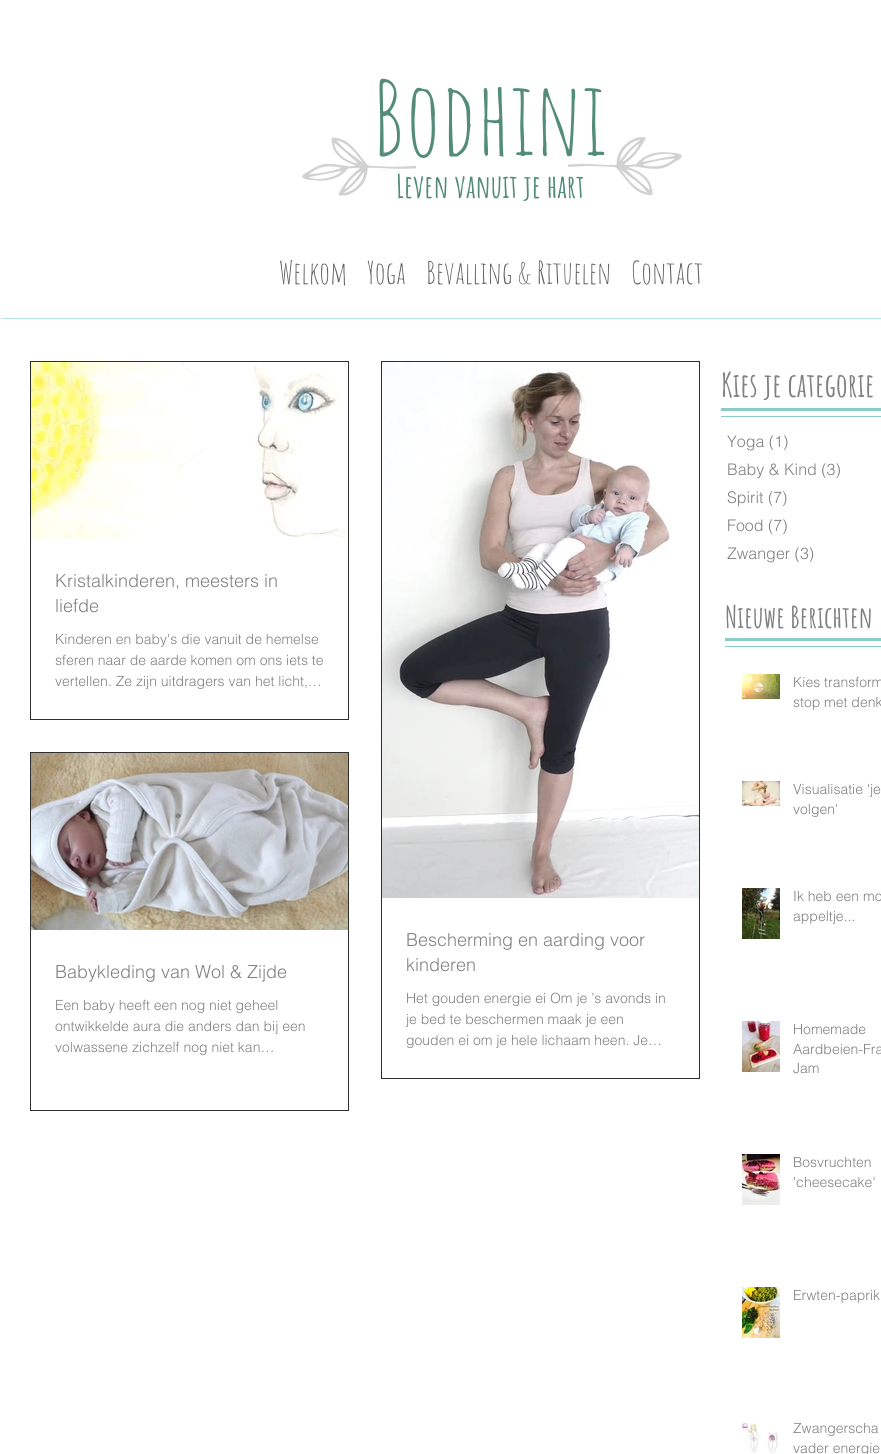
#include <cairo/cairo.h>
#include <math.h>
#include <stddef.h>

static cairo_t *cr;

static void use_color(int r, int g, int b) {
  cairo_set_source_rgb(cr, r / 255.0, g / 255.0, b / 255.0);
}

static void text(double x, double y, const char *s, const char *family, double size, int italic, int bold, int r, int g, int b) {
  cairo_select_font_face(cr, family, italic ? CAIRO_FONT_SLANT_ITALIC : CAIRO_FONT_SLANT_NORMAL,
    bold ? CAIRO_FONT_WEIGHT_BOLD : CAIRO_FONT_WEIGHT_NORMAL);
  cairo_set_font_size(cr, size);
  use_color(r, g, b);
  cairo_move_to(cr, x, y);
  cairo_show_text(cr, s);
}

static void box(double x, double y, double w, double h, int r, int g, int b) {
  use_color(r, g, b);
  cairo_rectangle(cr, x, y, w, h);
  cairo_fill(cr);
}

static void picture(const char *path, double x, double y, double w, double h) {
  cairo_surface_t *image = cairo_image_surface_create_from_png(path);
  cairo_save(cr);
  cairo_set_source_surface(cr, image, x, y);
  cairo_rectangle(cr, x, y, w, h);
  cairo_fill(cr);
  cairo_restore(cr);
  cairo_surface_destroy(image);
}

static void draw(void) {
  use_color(255, 255, 255);
  cairo_paint(cr);
  box(1, 318, 880, 1, 181, 229, 227);
  box(721, 408, 160, 3, 139, 204, 200);
  box(721, 416, 160, 1, 139, 204, 200);
  cairo_rectangle(cr, 30.5, 361.5, 318, 358);
  use_color(47, 46, 46);
  cairo_set_line_width(cr, 1);
  cairo_stroke(cr);
  picture("img_03.png", 31, 362, 317, 177);
  cairo_rectangle(cr, 30.5, 752.5, 318, 358);
  cairo_stroke(cr);
  picture("img_04.png", 31, 753, 317, 177);
  cairo_rectangle(cr, 381.5, 361.5, 318, 717);
  cairo_stroke(cr);
  picture("img_05.png", 382, 362, 317, 536);
  box(725, 638, 156, 3, 139, 204, 200);
  box(725, 646, 156, 1, 139, 204, 200);
  picture("img_06.png", 742, 674, 38, 25);
  picture("img_07.png", 742, 781, 38, 25);
  picture("img_08.png", 742, 888, 38, 51);
  picture("img_09.png", 742, 1021, 38, 51);
  picture("img_10.png", 742, 1154, 38, 51);
  picture("img_11.png", 742, 1287, 38, 51);
  picture("img_12.png", 742, 1420, 38, 34);
  text(396, 198, "Leven vanuit je hart", "Amatic SC", 32, 0, 1, 83, 141, 119);
  picture("img_01.png", 302, 137, 115, 59);
  text(372, 156, "Bodhini", "Amatic SC", 103, 0, 0, 83, 141, 119);
  picture("img_02.png", 567, 137, 115, 59);
  text(279, 284, "Welkom", "Amatic SC", 31, 0, 0, 95, 95, 95);
  text(367, 284, "Yoga", "Amatic SC", 31, 0, 0, 95, 95, 95);
  text(426, 284, "Bevalling & Rituelen", "Amatic SC", 31, 0, 0, 95, 95, 95);
  text(631, 284, "Contact", "Amatic SC", 31, 0, 0, 95, 95, 95);
  text(721, 397, "Kies je categorie", "Amatic SC", 33, 0, 1, 129, 129, 129);
  text(727, 447, "Yoga (1)", "helvetica Light", 16, 0, 0, 129, 129, 129);
  text(727, 475, "Baby & Kind (3)", "helvetica Light", 16, 0, 0, 129, 129, 129);
  text(727, 503, "Spirit (7)", "helvetica Light", 16, 0, 0, 129, 129, 129);
  text(727, 531, "Food (7)", "helvetica Light", 16, 0, 0, 129, 129, 129);
  text(727, 559, "Zwanger (3)", "helvetica Light", 16, 0, 0, 129, 129, 129);
  text(55, 587, "Kristalkinderen, meesters in", "helvetica Light", 18, 0, 0, 129, 129, 129);
  text(55, 612, "liefde", "helvetica Light", 18, 0, 0, 129, 129, 129);
  text(55, 644, "Kinderen en baby's die vanuit de hemelse", "helvetica Light", 14, 0, 0, 129, 129, 129);
  text(55, 665, "sferen naar de aarde komen om ons iets te", "helvetica Light", 14, 0, 0, 129, 129, 129);
  text(55, 686, "vertellen. Ze zijn uitdragers van het licht,…", "helvetica Light", 14, 0, 0, 129, 129, 129);
  text(55, 978, "Babykleding van Wol & Zijde", "helvetica Light", 18, 0, 0, 129, 129, 129);
  text(55, 1010, "Een baby heeft een nog niet geheel", "helvetica Light", 14, 0, 0, 129, 129, 129);
  text(55, 1031, "ontwikkelde aura die anders dan bij een", "helvetica Light", 14, 0, 0, 129, 129, 129);
  text(55, 1052, "volwassene zichzelf nog niet kan…", "helvetica Light", 14, 0, 0, 129, 129, 129);
  text(406, 946, "Bescherming en aarding voor", "helvetica Light", 18, 0, 0, 129, 129, 129);
  text(406, 971, "kinderen", "helvetica Light", 18, 0, 0, 129, 129, 129);
  text(406, 1003, "Het gouden energie ei Om je ’s avonds in", "helvetica Light", 14, 0, 0, 129, 129, 129);
  text(406, 1024, "je bed te beschermen maak je een", "helvetica Light", 14, 0, 0, 129, 129, 129);
  text(406, 1045, "gouden ei om je hele lichaam heen. Je…", "helvetica Light", 14, 0, 0, 129, 129, 129);
  text(725, 628, "Nieuwe Berichten", "Amatic SC", 30, 0, 1, 129, 129, 129);
  text(793, 687, "Kies transform", "helvetica Light", 14, 0, 0, 129, 129, 129);
  text(793, 707, "stop met denk", "helvetica Light", 14, 0, 0, 129, 129, 129);
  text(793, 794, "Visualisatie 'je", "helvetica Light", 14, 0, 0, 129, 129, 129);
  text(793, 814, "volgen'", "helvetica Light", 14, 0, 0, 129, 129, 129);
  text(793, 901, "Ik heb een mo", "helvetica Light", 14, 0, 0, 129, 129, 129);
  text(793, 921, "appeltje...", "helvetica Light", 14, 0, 0, 129, 129, 129);
  text(793, 1034, "Homemade", "helvetica Light", 14, 0, 0, 129, 129, 129);
  text(793, 1054, "Aardbeien-Fra", "helvetica Light", 14, 0, 0, 129, 129, 129);
  text(793, 1073, "Jam", "helvetica Light", 14, 0, 0, 129, 129, 129);
  text(793, 1167, "Bosvruchten", "helvetica Light", 14, 0, 0, 129, 129, 129);
  text(793, 1187, "'cheesecake'", "helvetica Light", 14, 0, 0, 129, 129, 129);
  text(793, 1300, "Erwten-paprik", "helvetica Light", 14, 0, 0, 129, 129, 129);
  text(793, 1433, "Zwangerscha", "helvetica Light", 14, 0, 0, 129, 129, 129);
  text(793, 1453, "vader energie", "helvetica Light", 14, 0, 0, 129, 129, 129);
}

int main(void) {
  cairo_surface_t *surface = cairo_image_surface_create(CAIRO_FORMAT_RGB24, 881, 1454);
  cr = cairo_create(surface);
  cairo_font_options_t *options = cairo_font_options_create();
  cairo_font_options_set_hint_metrics(options, CAIRO_HINT_METRICS_OFF);
  cairo_font_options_set_hint_style(options, CAIRO_HINT_STYLE_NONE);
  cairo_set_font_options(cr, options);
  cairo_set_miter_limit(cr, 4);
  draw();
  cairo_surface_write_to_png(surface, "out.png");
  cairo_font_options_destroy(options);
  cairo_destroy(cr);
  cairo_surface_destroy(surface);
  return 0;
}
